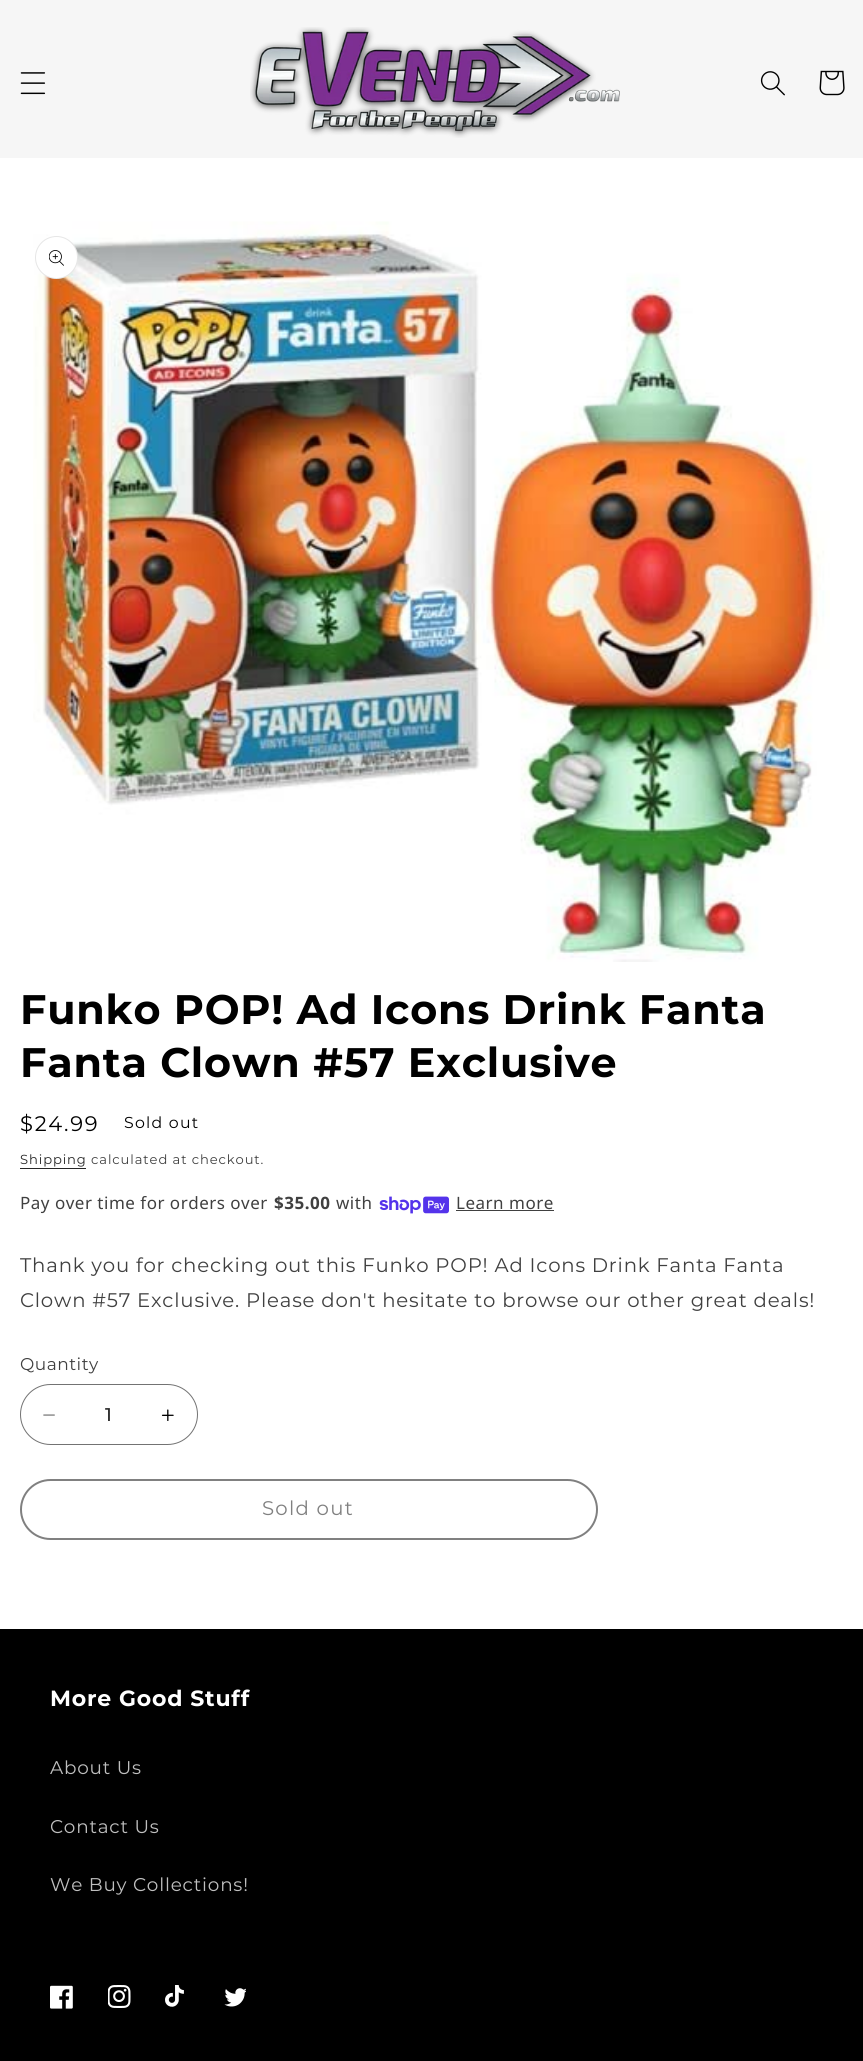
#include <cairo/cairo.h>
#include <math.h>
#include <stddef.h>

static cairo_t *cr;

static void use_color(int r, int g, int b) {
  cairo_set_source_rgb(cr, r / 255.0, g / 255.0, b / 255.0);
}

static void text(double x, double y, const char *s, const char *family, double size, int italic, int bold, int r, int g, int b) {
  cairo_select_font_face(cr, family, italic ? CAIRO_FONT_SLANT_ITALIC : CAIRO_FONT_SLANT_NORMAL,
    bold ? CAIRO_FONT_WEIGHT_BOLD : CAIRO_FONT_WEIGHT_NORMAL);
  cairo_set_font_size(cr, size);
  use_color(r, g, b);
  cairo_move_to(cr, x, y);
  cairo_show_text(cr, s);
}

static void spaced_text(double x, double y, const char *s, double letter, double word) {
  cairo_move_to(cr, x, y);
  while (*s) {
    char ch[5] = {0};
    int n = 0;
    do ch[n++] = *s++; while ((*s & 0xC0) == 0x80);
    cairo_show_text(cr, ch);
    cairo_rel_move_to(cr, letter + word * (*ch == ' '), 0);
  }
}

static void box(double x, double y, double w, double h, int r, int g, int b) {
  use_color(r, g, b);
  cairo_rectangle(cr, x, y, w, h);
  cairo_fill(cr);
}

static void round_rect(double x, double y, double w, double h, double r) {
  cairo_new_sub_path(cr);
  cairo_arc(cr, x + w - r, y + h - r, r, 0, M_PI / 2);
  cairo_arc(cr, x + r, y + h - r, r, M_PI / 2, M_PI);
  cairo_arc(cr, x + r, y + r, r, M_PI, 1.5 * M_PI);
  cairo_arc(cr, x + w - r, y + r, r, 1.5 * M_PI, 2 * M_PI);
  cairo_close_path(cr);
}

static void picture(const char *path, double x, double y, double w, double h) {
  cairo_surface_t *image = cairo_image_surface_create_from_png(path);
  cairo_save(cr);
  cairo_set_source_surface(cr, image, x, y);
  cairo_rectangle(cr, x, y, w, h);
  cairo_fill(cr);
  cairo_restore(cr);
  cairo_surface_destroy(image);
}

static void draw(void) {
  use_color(255, 255, 255);
  cairo_paint(cr);
  box(0, 0, 863, 158, 246, 246, 246);
  picture("img_01.png", 20, 72, 26, 23);
  picture("img_02.png", 250, 27, 370, 111);
  picture("img_03.png", 760, 71, 25, 25);
  picture("img_04.png", 819, 70, 26, 26);
  picture("img_05.png", 33, 221, 797, 741);
  use_color(255, 255, 255);
  cairo_arc(cr, 56.5, 257.5, 21.5, 0, 2 * M_PI);
  cairo_fill(cr);
  cairo_arc(cr, 56.5, 257.5, 21, 0, 2 * M_PI);
  cairo_set_source_rgba(cr, 0, 0, 0, 0.1);
  cairo_set_line_width(cr, 1);
  cairo_stroke(cr);
  picture("img_06.png", 49, 250, 15, 16);
  box(20, 1168, 66, 1, 38, 38, 38);
  picture("img_07.png", 379, 1196, 70, 18);
  box(456, 1210, 98, 1, 64, 64, 64);
  picture("img_08.png", 43, 1414, 12, 2);
  picture("img_09.png", 161, 1409, 13, 12);
  round_rect(20.5, 1384.5, 177, 60, 30);
  use_color(115, 115, 115);
  cairo_stroke(cr);
  round_rect(21, 1480, 576, 59, 29.5);
  use_color(128, 128, 128);
  cairo_set_line_width(cr, 2);
  cairo_stroke(cr);
  box(0, 1629, 863, 432, 0, 0, 0);
  picture("img_10.png", 50, 1985, 23, 24);
  picture("img_11.png", 108, 1985, 23, 23);
  picture("img_12.png", 165, 1985, 19, 22);
  picture("img_13.png", 224, 1988, 22, 19);
  cairo_select_font_face(cr, "Montserrat", CAIRO_FONT_SLANT_NORMAL, CAIRO_FONT_WEIGHT_BOLD);
  cairo_set_font_size(cr, 41.25);
  spaced_text(20, 1024, "Funko POP! Ad Icons Drink Fanta", 0.8, 0);
  spaced_text(20, 1077, "Fanta Clown #57 Exclusive", 0.8, 0);
  cairo_select_font_face(cr, "Montserrat Thin", CAIRO_FONT_SLANT_NORMAL, CAIRO_FONT_WEIGHT_NORMAL);
  cairo_set_font_size(cr, 21);
  spaced_text(20, 1131, "$24.99", 1.75, 0);
  cairo_set_font_size(cr, 15.75);
  spaced_text(124, 1128, "Sold out", 1.25, 0);
  cairo_set_font_size(cr, 13.1);
  use_color(38, 38, 38);
  spaced_text(20, 1164, "Shipping", 0.9, 0);
  use_color(64, 64, 64);
  spaced_text(91, 1164, "calculated at checkout.", 0.9, 0);
  cairo_select_font_face(cr, "Noto Sans", CAIRO_FONT_SLANT_NORMAL, CAIRO_FONT_WEIGHT_NORMAL);
  cairo_set_font_size(cr, 17);
  spaced_text(20, 1209, "Pay over time for orders over", 0.5, 0);
  cairo_select_font_face(cr, "Noto Sans", CAIRO_FONT_SLANT_NORMAL, CAIRO_FONT_WEIGHT_BOLD);
  spaced_text(274, 1209, "$35.00", 0.5, 0);
  cairo_select_font_face(cr, "Noto Sans", CAIRO_FONT_SLANT_NORMAL, CAIRO_FONT_WEIGHT_NORMAL);
  spaced_text(336, 1209, "with", 0.5, 0);
  spaced_text(456, 1209, "Learn more", 0.5, 0);
  cairo_select_font_face(cr, "Montserrat Thin", CAIRO_FONT_SLANT_NORMAL, CAIRO_FONT_WEIGHT_NORMAL);
  cairo_set_font_size(cr, 19.7);
  spaced_text(20, 1272, "Thank you for checking out this Funko POP! Ad Icons Drink Fanta Fanta", 0.8, 0);
  spaced_text(20, 1307, "Clown #57 Exclusive. Please don't hesitate to browse our other great deals!", 0.8, 0);
  cairo_set_font_size(cr, 17);
  spaced_text(20, 1370, "Quantity", 0.5, 0);
  text(105, 1421, "1", "Montserrat Medium", 18.4, 0, 0, 38, 38, 38);
  cairo_select_font_face(cr, "Montserrat Thin", CAIRO_FONT_SLANT_NORMAL, CAIRO_FONT_WEIGHT_NORMAL);
  cairo_set_font_size(cr, 19.7);
  use_color(128, 128, 128);
  spaced_text(262, 1515, "Sold out", 1.25, 0);
  cairo_select_font_face(cr, "Montserrat", CAIRO_FONT_SLANT_NORMAL, CAIRO_FONT_WEIGHT_BOLD);
  cairo_set_font_size(cr, 22);
  use_color(255, 255, 255);
  spaced_text(50, 1706, "More Good Stuff", 0.8, 0);
  cairo_select_font_face(cr, "Montserrat Thin", CAIRO_FONT_SLANT_NORMAL, CAIRO_FONT_WEIGHT_NORMAL);
  cairo_set_font_size(cr, 18.4);
  use_color(191, 191, 191);
  spaced_text(50, 1774, "About Us", 0.8, 0);
  spaced_text(50, 1833, "Contact Us", 0.8, 0);
  spaced_text(50, 1891, "We Buy Collections!", 0.8, 0);
}

int main(void) {
  cairo_surface_t *surface = cairo_image_surface_create(CAIRO_FORMAT_RGB24, 863, 2061);
  cr = cairo_create(surface);
  cairo_font_options_t *options = cairo_font_options_create();
  cairo_font_options_set_hint_metrics(options, CAIRO_HINT_METRICS_OFF);
  cairo_font_options_set_hint_style(options, CAIRO_HINT_STYLE_NONE);
  cairo_set_font_options(cr, options);
  cairo_set_miter_limit(cr, 4);
  draw();
  cairo_surface_write_to_png(surface, "out.png");
  cairo_font_options_destroy(options);
  cairo_destroy(cr);
  cairo_surface_destroy(surface);
  return 0;
}
